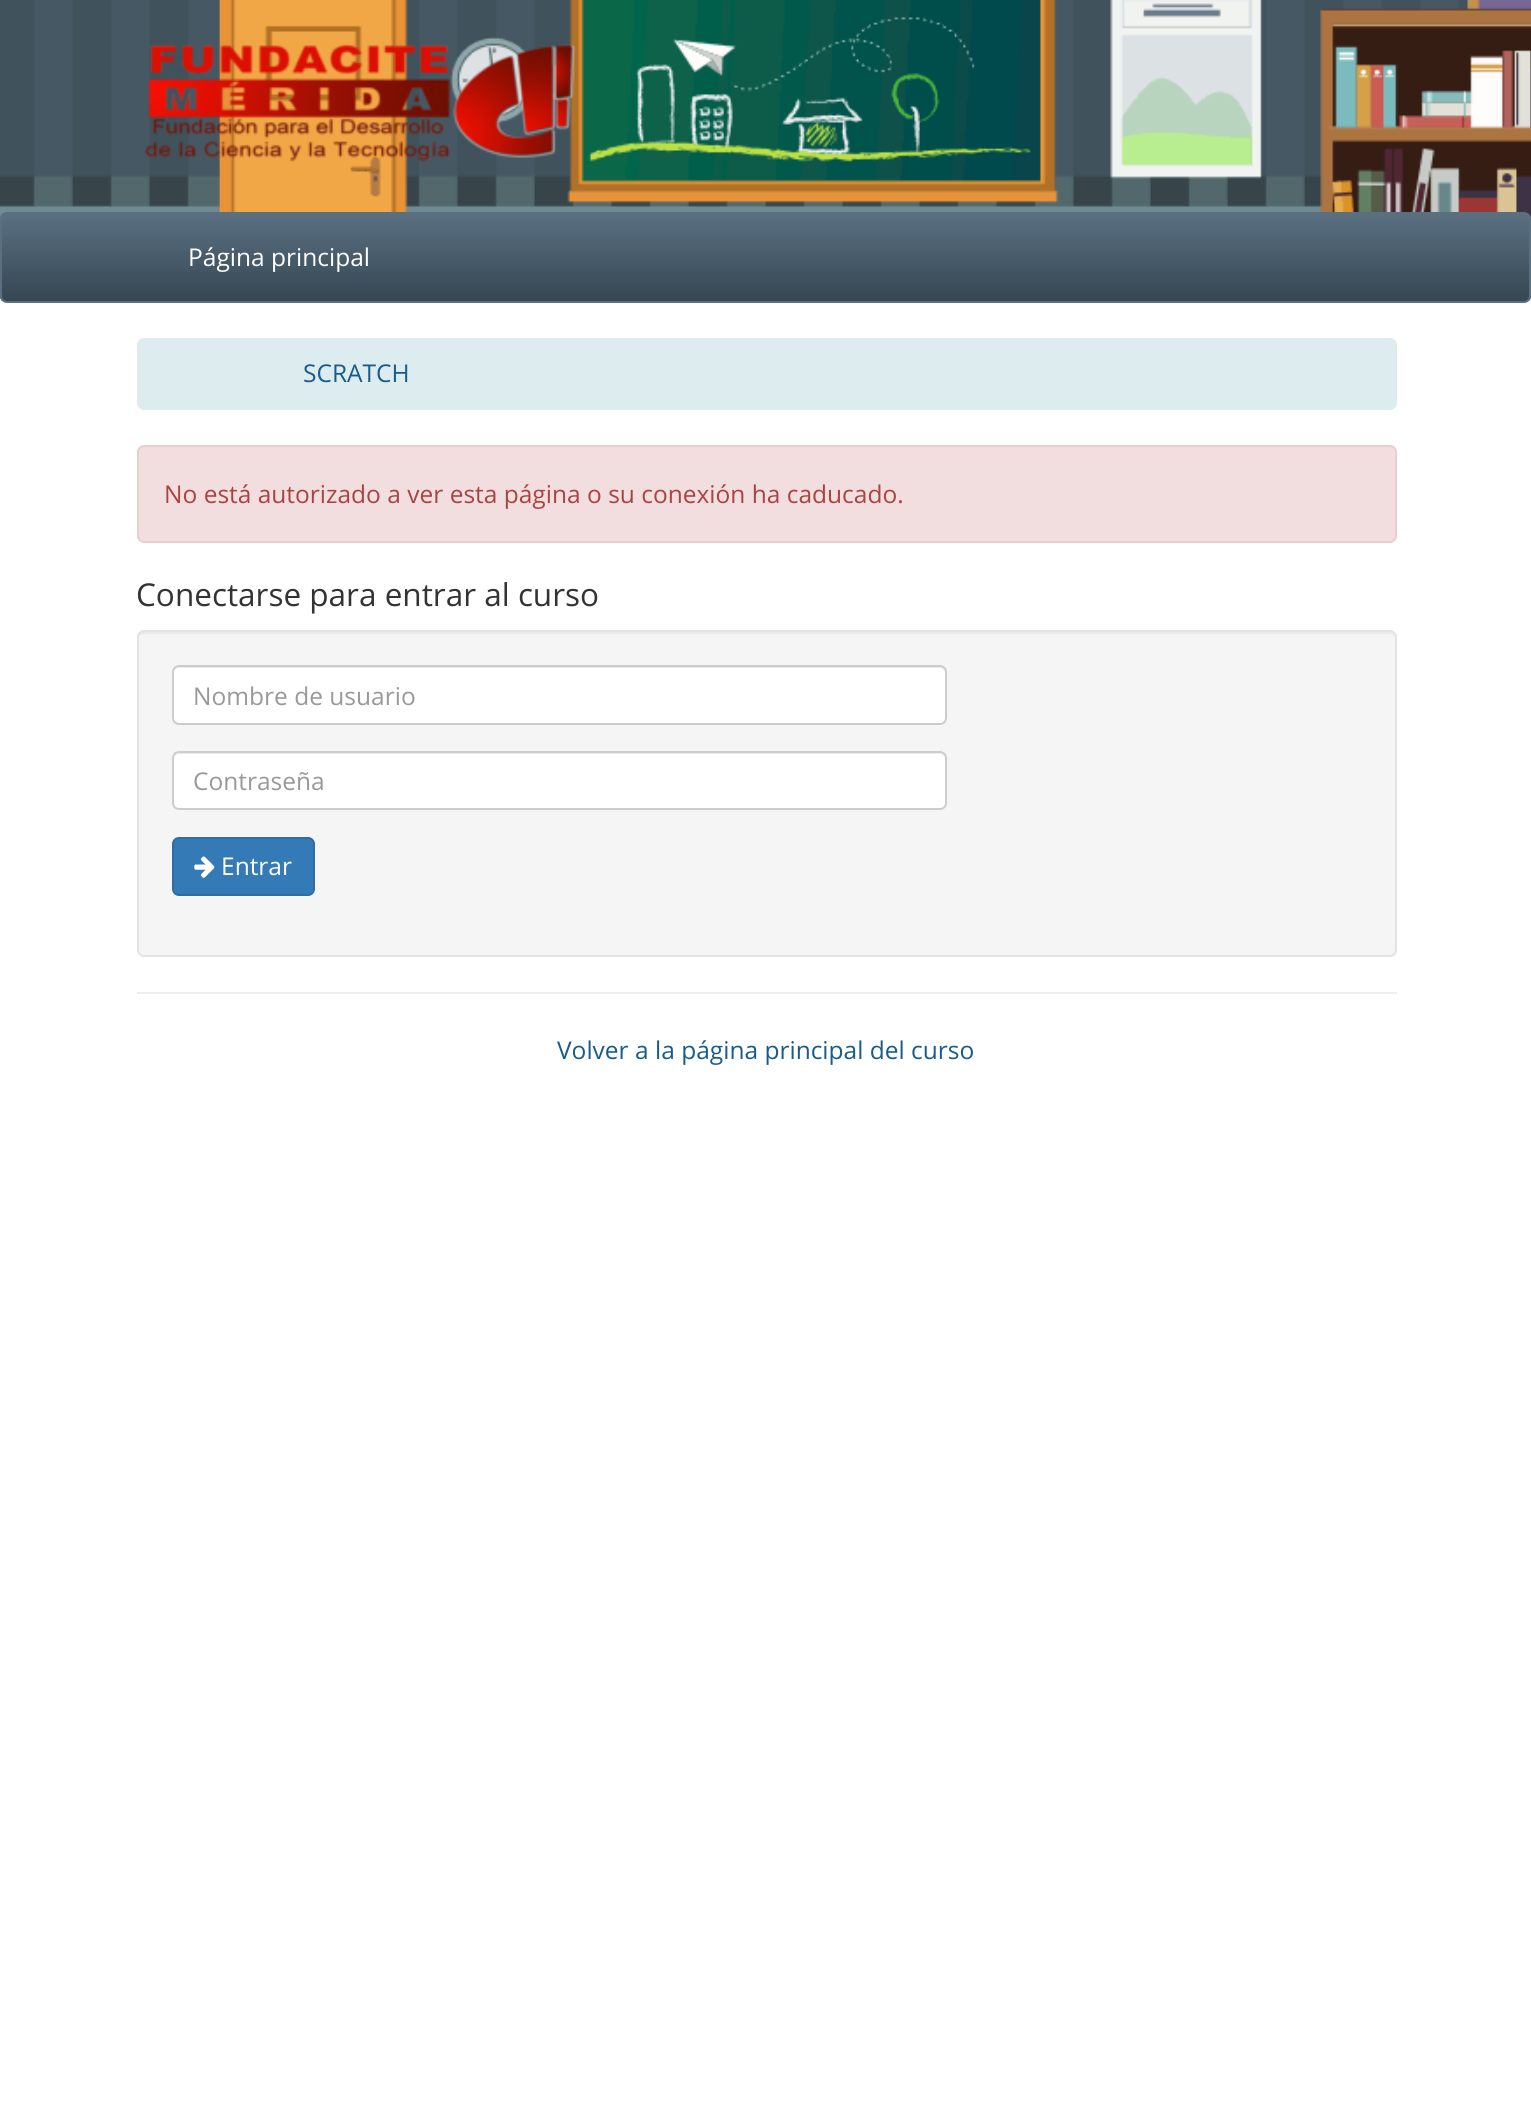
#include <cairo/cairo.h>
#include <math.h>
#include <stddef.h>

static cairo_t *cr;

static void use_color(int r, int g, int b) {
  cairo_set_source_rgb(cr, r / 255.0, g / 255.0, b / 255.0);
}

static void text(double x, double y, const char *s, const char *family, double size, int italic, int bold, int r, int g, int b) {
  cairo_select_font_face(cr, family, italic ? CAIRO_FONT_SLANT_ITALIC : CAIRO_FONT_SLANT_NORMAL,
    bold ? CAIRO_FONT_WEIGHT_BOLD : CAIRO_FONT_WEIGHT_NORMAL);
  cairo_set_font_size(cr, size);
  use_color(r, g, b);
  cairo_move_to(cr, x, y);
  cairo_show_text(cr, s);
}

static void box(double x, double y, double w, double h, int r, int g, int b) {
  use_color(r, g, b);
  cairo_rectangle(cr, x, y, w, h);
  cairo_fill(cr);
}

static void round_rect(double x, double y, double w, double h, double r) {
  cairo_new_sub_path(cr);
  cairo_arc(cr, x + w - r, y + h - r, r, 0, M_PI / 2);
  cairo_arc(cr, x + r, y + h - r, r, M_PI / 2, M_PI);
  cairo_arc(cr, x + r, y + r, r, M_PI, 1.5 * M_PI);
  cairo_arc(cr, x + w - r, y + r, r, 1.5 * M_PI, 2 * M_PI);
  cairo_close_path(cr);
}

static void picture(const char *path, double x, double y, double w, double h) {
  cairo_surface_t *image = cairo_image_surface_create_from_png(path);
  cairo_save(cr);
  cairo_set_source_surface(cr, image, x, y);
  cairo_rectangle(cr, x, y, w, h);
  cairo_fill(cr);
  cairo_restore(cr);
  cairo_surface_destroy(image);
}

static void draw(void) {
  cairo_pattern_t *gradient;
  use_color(255, 255, 255);
  cairo_paint(cr);
  picture("img_01.png", 0, 0, 1531, 298);
  picture("img_02.png", 145, 43, 431, 119);
  cairo_save(cr);
  round_rect(0, 212, 1531, 91, 7);
  cairo_clip(cr);
  gradient = cairo_pattern_create_linear(766, 213, 766, 301);
  cairo_pattern_add_color_stop_rgba(gradient, 0.01, 0.353, 0.439, 0.506, 1);
  cairo_pattern_add_color_stop_rgba(gradient, 1, 0.212, 0.278, 0.325, 1);
  cairo_set_source(cr, gradient);
  cairo_pattern_destroy(gradient);
  cairo_rectangle(cr, 0, 214, 1531, 87);
  cairo_fill(cr);
  cairo_restore(cr);
  round_rect(1, 213, 1529, 89, 6);
  use_color(90, 112, 129);
  cairo_stroke(cr);
  use_color(221, 236, 239);
  round_rect(137, 338, 1260, 72, 7);
  cairo_fill(cr);
  use_color(242, 222, 222);
  round_rect(138, 446, 1258, 96, 6);
  cairo_fill_preserve(cr);
  use_color(235, 204, 209);
  cairo_stroke(cr);
  use_color(245, 245, 245);
  round_rect(137, 630, 1260, 327, 7);
  cairo_fill(cr);
  use_color(233, 233, 233);
  cairo_new_path(cr);
  cairo_move_to(cr, 144, 634);
  cairo_line_to(cr, 1390, 634);
  cairo_curve_to(cr, 1392, 634, 1395, 636, 1395, 639);
  cairo_line_to(cr, 1395, 637);
  cairo_curve_to(cr, 1395, 634, 1393, 632, 1390, 632);
  cairo_line_to(cr, 143, 632);
  cairo_curve_to(cr, 140, 632, 138, 634, 138, 637);
  cairo_line_to(cr, 138, 639);
  cairo_curve_to(cr, 138, 636, 141, 634, 144, 634);
  cairo_close_path(cr);
  cairo_fill(cr);
  round_rect(138, 631, 1258, 325, 6);
  use_color(227, 227, 227);
  cairo_stroke(cr);
  use_color(255, 255, 255);
  round_rect(172, 665, 775, 60, 7);
  cairo_fill(cr);
  use_color(236, 236, 236);
  cairo_new_path(cr);
  cairo_move_to(cr, 178, 668);
  cairo_line_to(cr, 940, 668);
  cairo_curve_to(cr, 943, 668, 945, 671, 945, 674);
  cairo_curve_to(cr, 945, 671, 944, 667, 940, 667);
  cairo_line_to(cr, 178, 667);
  cairo_curve_to(cr, 174, 667, 173, 671, 173, 674);
  cairo_curve_to(cr, 173, 671, 176, 668, 178, 668);
  cairo_close_path(cr);
  cairo_fill(cr);
  round_rect(173, 666, 773, 58, 6);
  use_color(204, 204, 204);
  cairo_stroke(cr);
  use_color(255, 255, 255);
  round_rect(172, 751, 775, 59, 7);
  cairo_fill(cr);
  use_color(236, 236, 236);
  cairo_new_path(cr);
  cairo_move_to(cr, 178, 754);
  cairo_line_to(cr, 940, 754);
  cairo_curve_to(cr, 943, 754, 945, 757, 945, 760);
  cairo_curve_to(cr, 945, 757, 944, 753, 940, 753);
  cairo_line_to(cr, 178, 753);
  cairo_curve_to(cr, 174, 753, 173, 757, 173, 760);
  cairo_curve_to(cr, 173, 757, 176, 754, 178, 754);
  cairo_close_path(cr);
  cairo_fill(cr);
  round_rect(173, 752, 773, 57, 6);
  use_color(204, 204, 204);
  cairo_stroke(cr);
  use_color(51, 122, 183);
  round_rect(173, 838, 141, 57, 6);
  cairo_fill_preserve(cr);
  use_color(46, 109, 164);
  cairo_stroke(cr);
  picture("img_03.png", 194, 856, 21, 22);
  box(137, 992, 1260, 2, 238, 238, 238);
  text(188, 266, "Página principal", "Open Sans", 24.5, 0, 0, 255, 255, 255);
  text(303, 382, "SCRATCH", "Open Sans", 24.5, 0, 0, 24, 91, 142);
  text(164, 503, "No está autorizado a ver esta página o su conexión ha caducado.", "Open Sans", 24.5, 0, 0, 169, 68, 66);
  text(136, 606, "Conectarse para entrar al curso", "Open Sans", 31.5, 0, 0, 51, 51, 51);
  text(193, 705, "Nombre de usuario", "Open Sans", 24.5, 0, 0, 153, 153, 153);
  text(193, 790, "Contraseña", "Open Sans", 24.5, 0, 0, 153, 153, 153);
  text(221, 875, "Entrar", "Open Sans", 24.5, 0, 0, 255, 255, 255);
  text(557, 1059, "Volver a la página principal del curso", "Open Sans", 24.5, 0, 0, 24, 91, 142);
}

int main(void) {
  cairo_surface_t *surface = cairo_image_surface_create(CAIRO_FORMAT_RGB24, 1531, 2118);
  cr = cairo_create(surface);
  cairo_font_options_t *options = cairo_font_options_create();
  cairo_font_options_set_hint_metrics(options, CAIRO_HINT_METRICS_OFF);
  cairo_font_options_set_hint_style(options, CAIRO_HINT_STYLE_NONE);
  cairo_set_font_options(cr, options);
  cairo_set_miter_limit(cr, 4);
  draw();
  cairo_surface_write_to_png(surface, "out.png");
  cairo_font_options_destroy(options);
  cairo_destroy(cr);
  cairo_surface_destroy(surface);
  return 0;
}
